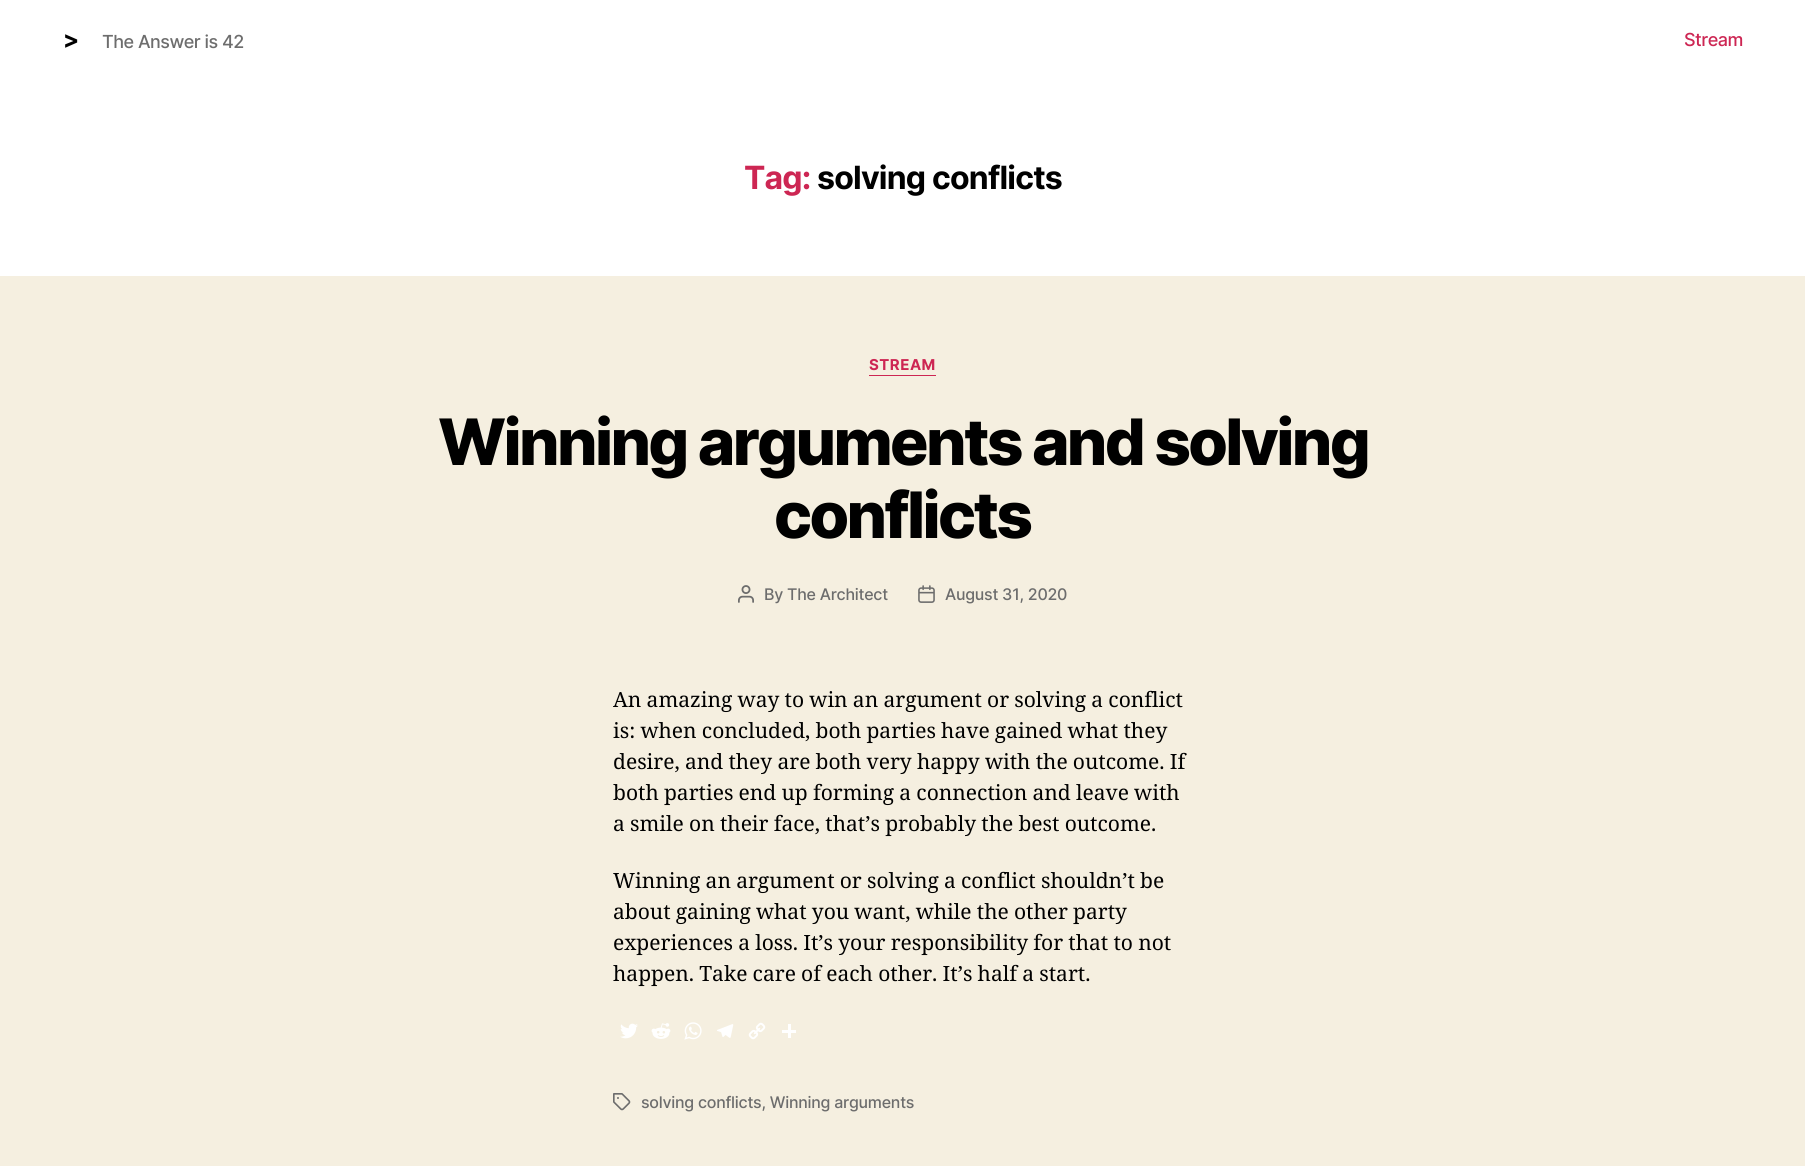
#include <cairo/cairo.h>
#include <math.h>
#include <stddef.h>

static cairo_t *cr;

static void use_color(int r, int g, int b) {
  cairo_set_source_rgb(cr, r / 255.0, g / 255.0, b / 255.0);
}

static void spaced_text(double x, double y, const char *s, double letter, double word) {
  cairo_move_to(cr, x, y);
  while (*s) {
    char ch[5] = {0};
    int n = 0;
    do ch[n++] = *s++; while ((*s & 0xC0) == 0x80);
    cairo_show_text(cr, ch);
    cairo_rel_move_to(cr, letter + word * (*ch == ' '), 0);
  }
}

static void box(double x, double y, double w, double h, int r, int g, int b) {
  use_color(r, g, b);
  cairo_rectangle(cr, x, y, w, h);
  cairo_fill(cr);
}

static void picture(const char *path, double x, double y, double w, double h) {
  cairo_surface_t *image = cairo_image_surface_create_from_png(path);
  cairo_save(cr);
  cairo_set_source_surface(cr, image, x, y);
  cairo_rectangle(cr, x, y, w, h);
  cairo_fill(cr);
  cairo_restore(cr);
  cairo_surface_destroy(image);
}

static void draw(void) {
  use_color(245, 239, 224);
  cairo_paint(cr);
  box(0, 0, 1805, 276, 255, 255, 255);
  box(869, 375, 67, 1, 205, 38, 83);
  picture("img_01.png", 738, 585, 16, 18);
  picture("img_02.png", 918, 585, 17, 18);
  picture("img_03.png", 620, 1023, 18, 16);
  picture("img_04.png", 651, 1023, 20, 16);
  picture("img_05.png", 684, 1022, 18, 18);
  picture("img_06.png", 717, 1024, 17, 14);
  picture("img_07.png", 748, 1022, 18, 18);
  box(788, 1024, 3, 14, 255, 255, 255);
  box(782, 1030, 14, 3, 255, 255, 255);
  picture("img_08.png", 613, 1093, 18, 18);
  cairo_select_font_face(cr, "Inter", CAIRO_FONT_SLANT_NORMAL, CAIRO_FONT_WEIGHT_BOLD);
  cairo_set_font_size(cr, 24);
  use_color(0, 0, 0);
  spaced_text(63, 48, ">", -1, 0);
  cairo_select_font_face(cr, "Inter Medium", CAIRO_FONT_SLANT_NORMAL, CAIRO_FONT_WEIGHT_NORMAL);
  cairo_set_font_size(cr, 18);
  use_color(109, 109, 109);
  spaced_text(102, 48, "The Answer is 42", -0.5, 0);
  use_color(205, 38, 83);
  spaced_text(1684, 46, "Stream", -0.5, 0);
  cairo_select_font_face(cr, "Inter", CAIRO_FONT_SLANT_NORMAL, CAIRO_FONT_WEIGHT_BOLD);
  cairo_set_font_size(cr, 32);
  spaced_text(744, 189, "Tag:", -0.8, 0);
  use_color(0, 0, 0);
  spaced_text(817, 189, "solving conflicts", -0.8, 0);
  cairo_set_font_size(cr, 15);
  use_color(205, 38, 83);
  spaced_text(869, 370, "STREAM", 0.5, 0);
  cairo_select_font_face(cr, "Inter ExtraBold", CAIRO_FONT_SLANT_NORMAL, CAIRO_FONT_WEIGHT_NORMAL);
  cairo_set_font_size(cr, 64);
  use_color(0, 0, 0);
  spaced_text(438, 465, "Winning arguments and solving", -2.65, 0);
  spaced_text(774, 538, "conflicts", -2.65, 0);
  cairo_select_font_face(cr, "Inter Medium", CAIRO_FONT_SLANT_NORMAL, CAIRO_FONT_WEIGHT_NORMAL);
  cairo_set_font_size(cr, 16);
  use_color(109, 109, 109);
  spaced_text(764, 600, "By The Architect", -0.25, 0);
  spaced_text(945, 600, "August 31, 2020", -0.25, 0);
  cairo_select_font_face(cr, "Noto Serif", CAIRO_FONT_SLANT_NORMAL, CAIRO_FONT_WEIGHT_NORMAL);
  cairo_set_font_size(cr, 21);
  use_color(0, 0, 0);
  spaced_text(613, 707, "An amazing way to win an argument or solving a conflict", 0, -0.25);
  spaced_text(613, 738, "is: when concluded, both parties have gained what they", 0, -0.25);
  spaced_text(613, 769, "desire, and they are both very happy with the outcome. If", 0, -0.25);
  spaced_text(613, 800, "both parties end up forming a connection and leave with", 0, -0.25);
  spaced_text(613, 831, "a smile on their face, that’s probably the best outcome.", 0, -0.25);
  spaced_text(613, 888, "Winning an argument or solving a conflict shouldn’t be", 0, -0.25);
  spaced_text(613, 919, "about gaining what you want, while the other party", 0, -0.25);
  spaced_text(613, 950, "experiences a loss. It’s your responsibility for that to not", 0, -0.25);
  spaced_text(613, 981, "happen. Take care of each other. It’s half a start.", 0, -0.25);
  cairo_select_font_face(cr, "Inter Medium", CAIRO_FONT_SLANT_NORMAL, CAIRO_FONT_WEIGHT_NORMAL);
  cairo_set_font_size(cr, 16);
  use_color(109, 109, 109);
  spaced_text(641, 1108, "solving conflicts, Winning arguments", -0.25, 0);
}

int main(void) {
  cairo_surface_t *surface = cairo_image_surface_create(CAIRO_FORMAT_RGB24, 1805, 1166);
  cr = cairo_create(surface);
  cairo_font_options_t *options = cairo_font_options_create();
  cairo_font_options_set_hint_metrics(options, CAIRO_HINT_METRICS_OFF);
  cairo_font_options_set_hint_style(options, CAIRO_HINT_STYLE_NONE);
  cairo_set_font_options(cr, options);
  cairo_set_miter_limit(cr, 4);
  draw();
  cairo_surface_write_to_png(surface, "out.png");
  cairo_font_options_destroy(options);
  cairo_destroy(cr);
  cairo_surface_destroy(surface);
  return 0;
}
